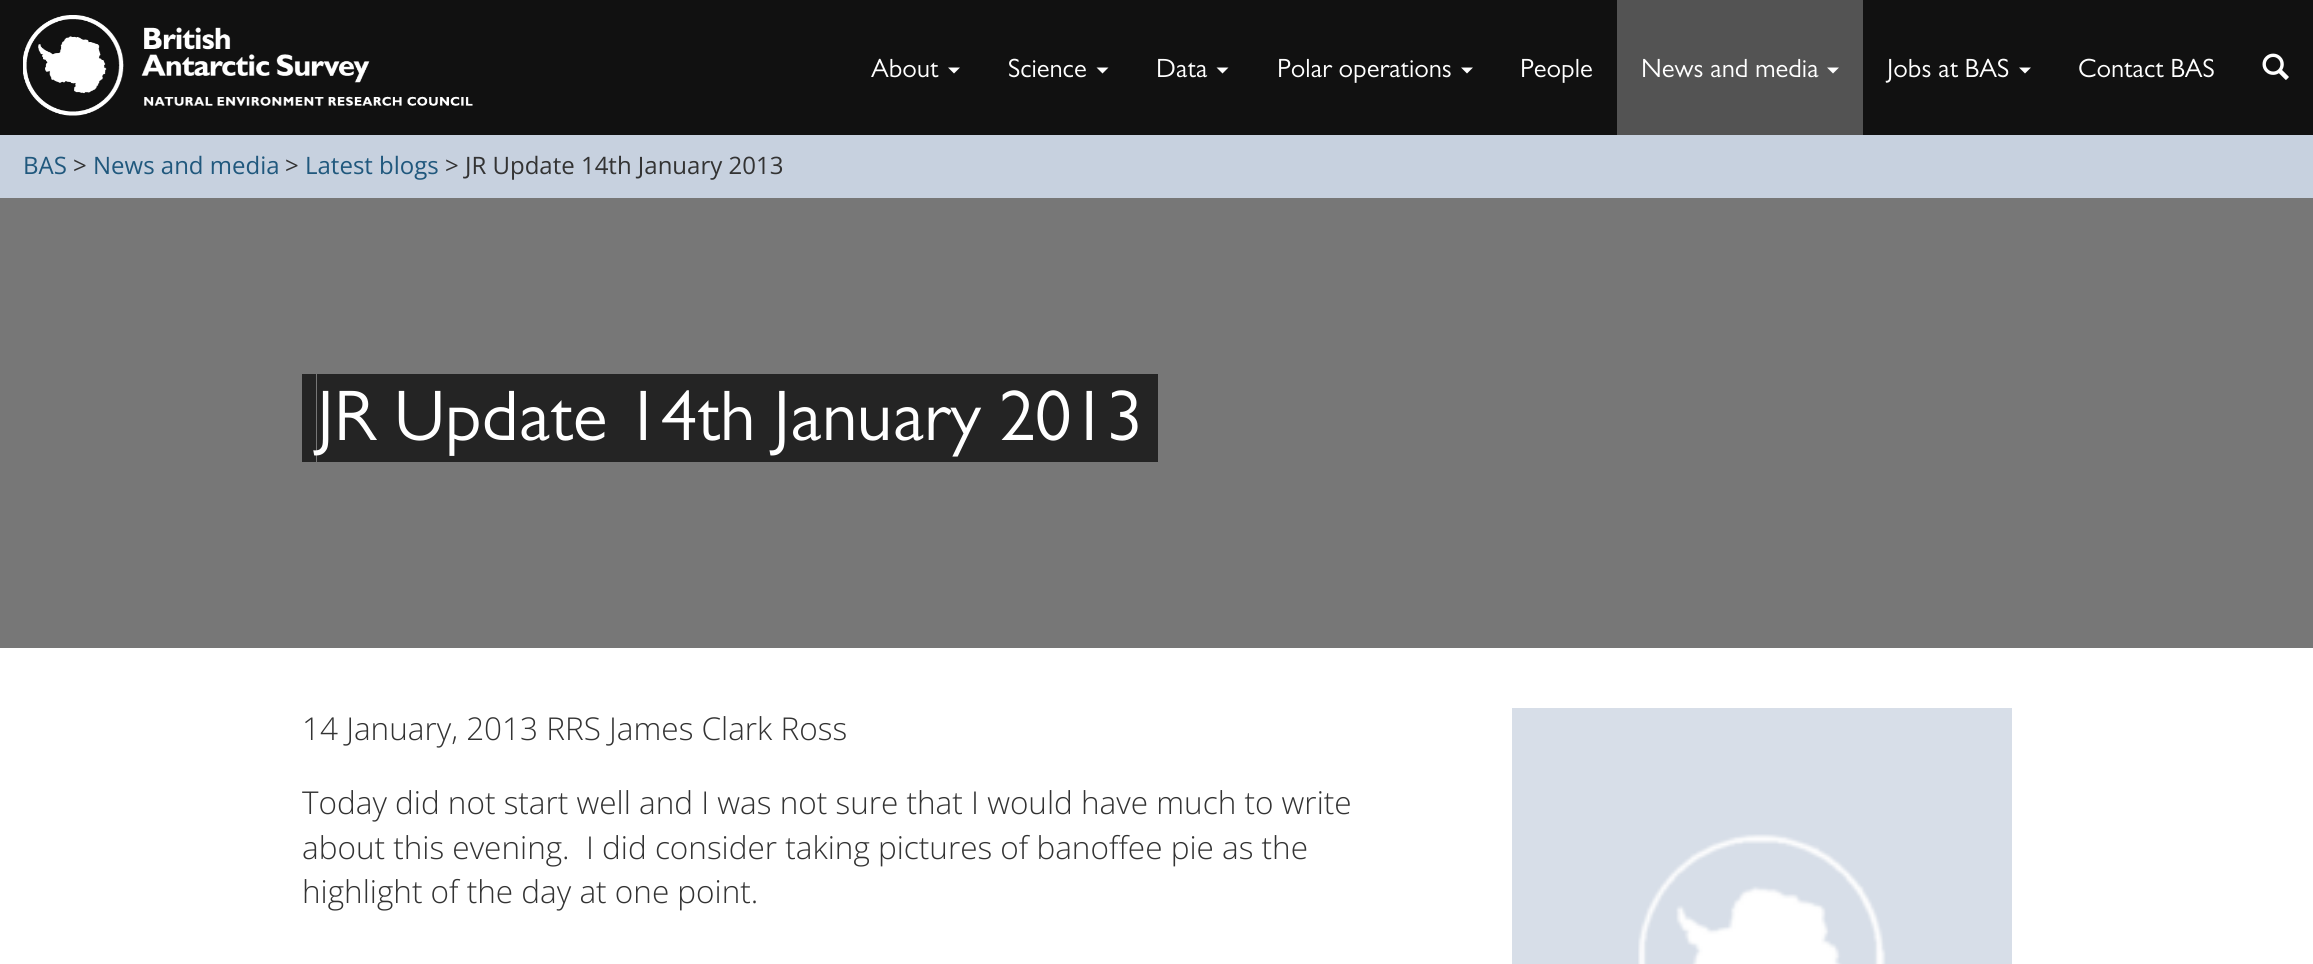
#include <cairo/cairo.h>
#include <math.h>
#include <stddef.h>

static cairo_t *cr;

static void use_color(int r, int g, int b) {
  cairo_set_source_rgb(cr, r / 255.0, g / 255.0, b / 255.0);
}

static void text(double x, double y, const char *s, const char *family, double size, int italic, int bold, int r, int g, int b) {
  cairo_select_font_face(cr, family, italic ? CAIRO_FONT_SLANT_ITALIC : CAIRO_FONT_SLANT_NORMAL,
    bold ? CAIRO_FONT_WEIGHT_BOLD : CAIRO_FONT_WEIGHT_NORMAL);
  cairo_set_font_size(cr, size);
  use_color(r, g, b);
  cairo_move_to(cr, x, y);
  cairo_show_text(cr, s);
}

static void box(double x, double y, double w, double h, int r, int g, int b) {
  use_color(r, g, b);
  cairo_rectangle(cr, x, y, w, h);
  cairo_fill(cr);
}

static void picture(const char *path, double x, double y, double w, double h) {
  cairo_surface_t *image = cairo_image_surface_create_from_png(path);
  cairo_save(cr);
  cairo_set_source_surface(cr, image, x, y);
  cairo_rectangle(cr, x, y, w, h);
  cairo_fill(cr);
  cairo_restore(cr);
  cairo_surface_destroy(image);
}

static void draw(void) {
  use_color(255, 255, 255);
  cairo_paint(cr);
  box(0, 0, 2313, 135, 17, 17, 17);
  picture("img_01.png", 23, 15, 450, 101);
  use_color(255, 255, 255);
  cairo_new_path(cr);
  cairo_move_to(cr, 948, 67.5);
  cairo_line_to(cr, 960, 67.5);
  cairo_line_to(cr, 954, 73.5);
  cairo_close_path(cr);
  cairo_fill(cr);
  cairo_new_path(cr);
  cairo_move_to(cr, 1096.5, 67.5);
  cairo_line_to(cr, 1108.5, 67.5);
  cairo_line_to(cr, 1102.5, 73.5);
  cairo_close_path(cr);
  cairo_fill(cr);
  cairo_new_path(cr);
  cairo_move_to(cr, 1216.5, 67.5);
  cairo_line_to(cr, 1228.5, 67.5);
  cairo_line_to(cr, 1222.5, 73.5);
  cairo_close_path(cr);
  cairo_fill(cr);
  cairo_new_path(cr);
  cairo_move_to(cr, 1461, 67.5);
  cairo_line_to(cr, 1473, 67.5);
  cairo_line_to(cr, 1467, 73.5);
  cairo_close_path(cr);
  cairo_fill(cr);
  box(1617, 0, 246, 135, 83, 83, 83);
  use_color(255, 255, 255);
  cairo_new_path(cr);
  cairo_move_to(cr, 1827, 67.5);
  cairo_line_to(cr, 1839, 67.5);
  cairo_line_to(cr, 1833, 73.5);
  cairo_close_path(cr);
  cairo_fill(cr);
  cairo_new_path(cr);
  cairo_move_to(cr, 2019, 67.5);
  cairo_line_to(cr, 2031, 67.5);
  cairo_line_to(cr, 2025, 73.5);
  cairo_close_path(cr);
  cairo_fill(cr);
  picture("img_02.png", 2262, 53, 27, 27);
  box(0, 135, 2313, 63, 199, 209, 223);
  box(0, 198, 2313, 450, 119, 119, 119);
  box(302, 374, 14, 88, 36, 36, 36);
  box(317, 374, 841, 88, 36, 36, 36);
  box(1512, 708, 500, 256, 215, 222, 232);
  picture("img_03.png", 1638, 834, 248, 130);
  text(871, 77, "About", "Gill Sans", 26.5, 0, 0, 255, 255, 255);
  text(1008, 77, "Science", "Gill Sans", 26.5, 0, 0, 255, 255, 255);
  text(1156, 77, "Data", "Gill Sans", 26.5, 0, 0, 255, 255, 255);
  text(1277, 77, "Polar operations", "Gill Sans", 26.5, 0, 0, 255, 255, 255);
  text(1520, 77, "People", "Gill Sans", 26.5, 0, 0, 255, 255, 255);
  text(1641, 77, "News and media", "Gill Sans", 26.5, 0, 0, 255, 255, 255);
  text(1887, 77, "Jobs at BAS", "Gill Sans", 26.5, 0, 0, 255, 255, 255);
  text(2078, 77, "Contact BAS", "Gill Sans", 26.5, 0, 0, 255, 255, 255);
  text(23, 174, "BAS", "Open Sans", 24, 0, 0, 32, 88, 125);
  text(73, 174, ">", "Open Sans", 24, 0, 0, 51, 51, 51);
  text(93, 174, "News and media", "Open Sans", 24, 0, 0, 32, 88, 125);
  text(285, 174, ">", "Open Sans", 24, 0, 0, 51, 51, 51);
  text(305, 174, "Latest blogs", "Open Sans", 24, 0, 0, 32, 88, 125);
  text(445, 174, "> JR Update 14th January 2013", "Open Sans", 24, 0, 0, 51, 51, 51);
  text(317, 440, "JR Update 14th January 2013", "Gill Sans", 72, 0, 0, 255, 255, 255);
  text(302, 740, "14 January, 2013 RRS James Clark Ross", "Open Sans Light", 31.5, 0, 0, 51, 51, 51);
  text(302, 814, "Today did not start well and I was not sure that I would have much to write", "Open Sans Light", 31.5, 0, 0, 51, 51, 51);
  text(302, 859, "about this evening.  I did consider taking pictures of banoffee pie as the", "Open Sans Light", 31.5, 0, 0, 51, 51, 51);
  text(302, 903, "highlight of the day at one point.", "Open Sans Light", 31.5, 0, 0, 51, 51, 51);
}

int main(void) {
  cairo_surface_t *surface = cairo_image_surface_create(CAIRO_FORMAT_RGB24, 2313, 964);
  cr = cairo_create(surface);
  cairo_font_options_t *options = cairo_font_options_create();
  cairo_font_options_set_hint_metrics(options, CAIRO_HINT_METRICS_OFF);
  cairo_font_options_set_hint_style(options, CAIRO_HINT_STYLE_NONE);
  cairo_set_font_options(cr, options);
  cairo_set_miter_limit(cr, 4);
  draw();
  cairo_surface_write_to_png(surface, "out.png");
  cairo_font_options_destroy(options);
  cairo_destroy(cr);
  cairo_surface_destroy(surface);
  return 0;
}
